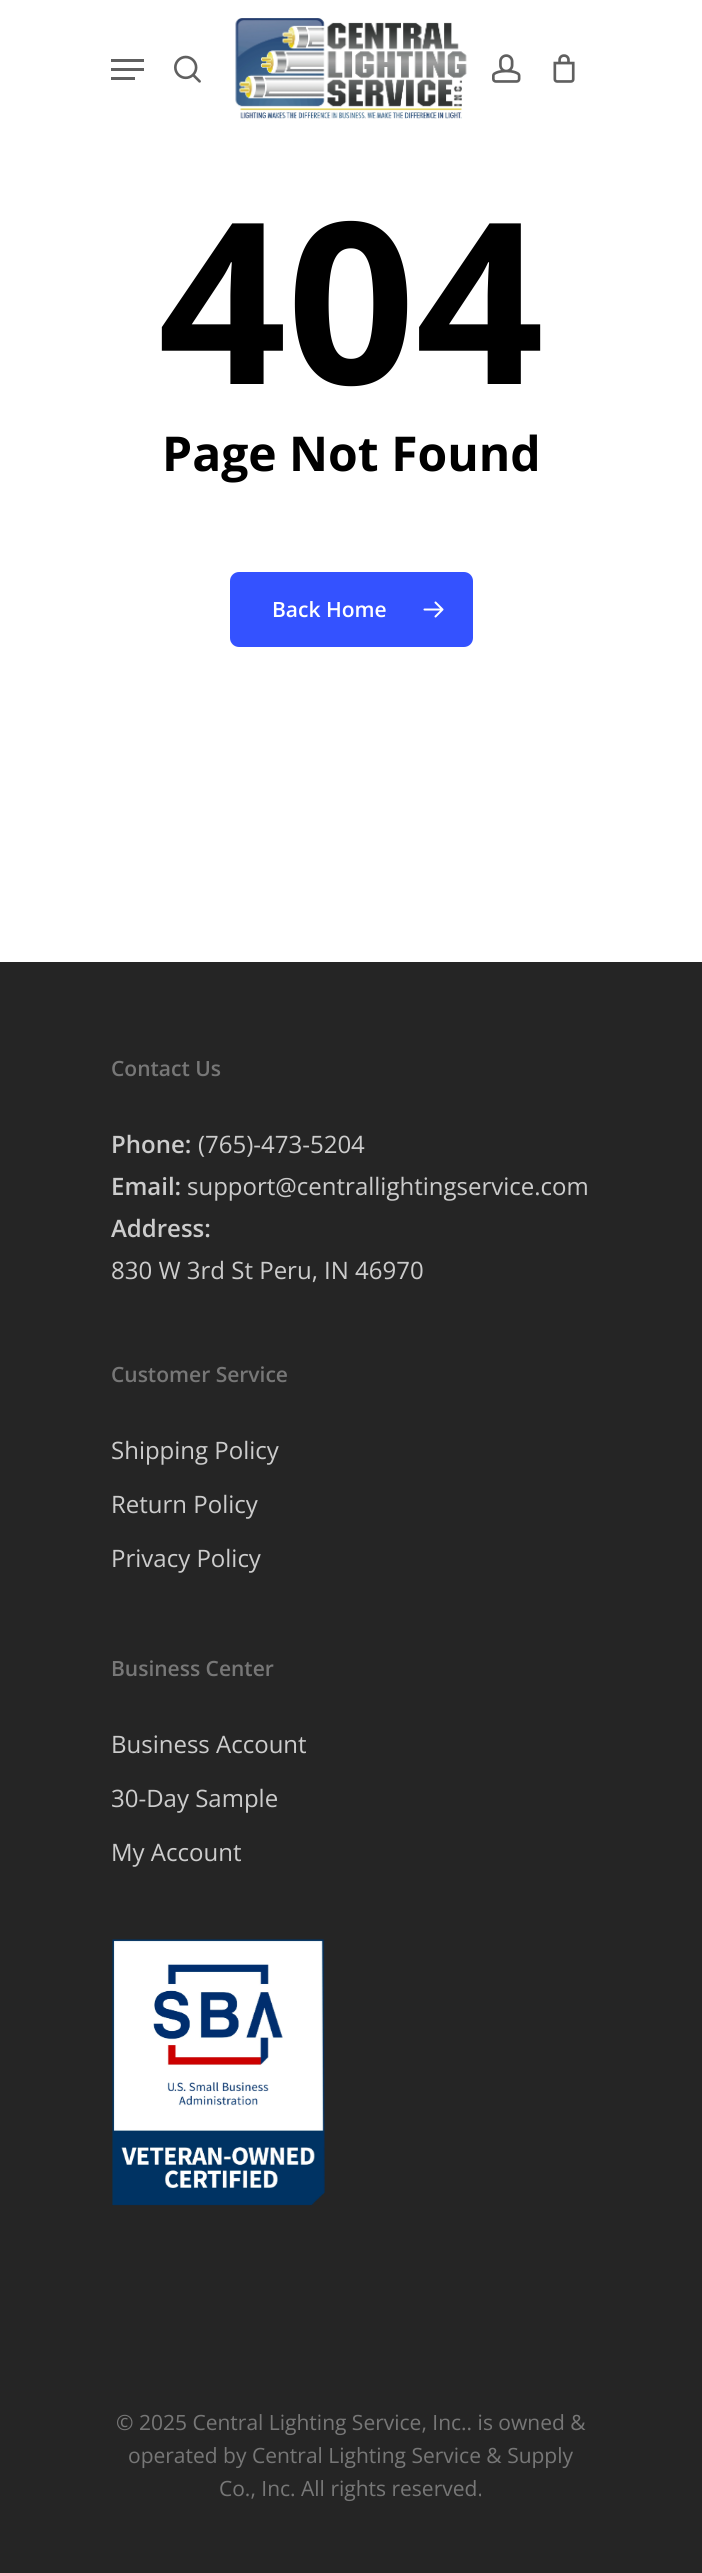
#include <cairo/cairo.h>
#include <math.h>
#include <stddef.h>

static cairo_t *cr;

static void use_color(int r, int g, int b) {
  cairo_set_source_rgb(cr, r / 255.0, g / 255.0, b / 255.0);
}

static void text(double x, double y, const char *s, const char *family, double size, int italic, int bold, int r, int g, int b) {
  cairo_select_font_face(cr, family, italic ? CAIRO_FONT_SLANT_ITALIC : CAIRO_FONT_SLANT_NORMAL,
    bold ? CAIRO_FONT_WEIGHT_BOLD : CAIRO_FONT_WEIGHT_NORMAL);
  cairo_set_font_size(cr, size);
  use_color(r, g, b);
  cairo_move_to(cr, x, y);
  cairo_show_text(cr, s);
}

static void box(double x, double y, double w, double h, int r, int g, int b) {
  use_color(r, g, b);
  cairo_rectangle(cr, x, y, w, h);
  cairo_fill(cr);
}

static void round_rect(double x, double y, double w, double h, double r) {
  cairo_new_sub_path(cr);
  cairo_arc(cr, x + w - r, y + h - r, r, 0, M_PI / 2);
  cairo_arc(cr, x + r, y + h - r, r, M_PI / 2, M_PI);
  cairo_arc(cr, x + r, y + r, r, M_PI, 1.5 * M_PI);
  cairo_arc(cr, x + w - r, y + r, r, 1.5 * M_PI, 2 * M_PI);
  cairo_close_path(cr);
}

static void picture(const char *path, double x, double y, double w, double h) {
  cairo_surface_t *image = cairo_image_surface_create_from_png(path);
  cairo_save(cr);
  cairo_set_source_surface(cr, image, x, y);
  cairo_rectangle(cr, x, y, w, h);
  cairo_fill(cr);
  cairo_restore(cr);
  cairo_surface_destroy(image);
}

static void draw(void) {
  use_color(255, 255, 255);
  cairo_paint(cr);
  picture("img_01.png", 235, 18, 232, 101);
  box(111, 59, 33, 3, 96, 96, 96);
  box(111, 77, 24, 3, 96, 96, 96);
  box(111, 68, 33, 3, 96, 96, 96);
  picture("img_02.png", 174, 55, 27, 28);
  picture("img_03.png", 492, 54, 29, 29);
  picture("img_04.png", 553, 54, 22, 29);
  use_color(52, 82, 255);
  round_rect(230, 572, 243, 75, 9);
  cairo_fill(cr);
  picture("img_05.png", 423, 601, 21, 17);
  box(0, 962, 702, 1611, 37, 37, 37);
  picture("img_06.png", 112, 1939, 213, 267);
  text(158, 384, "404", "Open Sans", 225, 0, 1, 0, 0, 0);
  text(162, 471, "Page Not Found", "Open Sans", 48, 0, 1, 0, 0, 0);
  text(272, 617, "Back Home", "Open Sans SemiBold", 21, 0, 0, 255, 255, 255);
  text(111, 1076, "Contact Us", "Open Sans SemiBold", 21, 0, 0, 119, 119, 119);
  text(111, 1153, "Phone:", "Open Sans SemiBold", 24, 0, 0, 204, 204, 204);
  text(198, 1153, "(765)-473-5204", "Open Sans", 24, 0, 0, 204, 204, 204);
  text(111, 1195, "Email:", "Open Sans SemiBold", 24, 0, 0, 204, 204, 204);
  text(187, 1195, "support@centrallightingservice.com", "Open Sans", 24, 0, 0, 204, 204, 204);
  text(111, 1237, "Address:", "Open Sans SemiBold", 24, 0, 0, 204, 204, 204);
  text(111, 1279, "830 W 3rd St Peru, IN 46970", "Open Sans", 24, 0, 0, 204, 204, 204);
  text(111, 1382, "Customer Service", "Open Sans SemiBold", 21, 0, 0, 119, 119, 119);
  text(111, 1459, "Shipping Policy", "Open Sans", 24, 0, 0, 204, 204, 204);
  text(111, 1513, "Return Policy", "Open Sans", 24, 0, 0, 204, 204, 204);
  text(111, 1567, "Privacy Policy", "Open Sans", 24, 0, 0, 204, 204, 204);
  text(111, 1676, "Business Center", "Open Sans SemiBold", 21, 0, 0, 119, 119, 119);
  text(111, 1753, "Business Account", "Open Sans", 24, 0, 0, 204, 204, 204);
  text(111, 1807, "30-Day Sample", "Open Sans", 24, 0, 0, 204, 204, 204);
  text(111, 1861, "My Account", "Open Sans", 24, 0, 0, 204, 204, 204);
  text(116, 2430, "© 2025 Central Lighting Service, Inc.. is owned &", "Open Sans", 21, 0, 0, 119, 119, 119);
  text(128, 2463, "operated by Central Lighting Service & Supply", "Open Sans", 21, 0, 0, 119, 119, 119);
  text(219, 2496, "Co., Inc. All rights reserved.", "Open Sans", 21, 0, 0, 119, 119, 119);
}

int main(void) {
  cairo_surface_t *surface = cairo_image_surface_create(CAIRO_FORMAT_RGB24, 702, 2573);
  cr = cairo_create(surface);
  cairo_font_options_t *options = cairo_font_options_create();
  cairo_font_options_set_hint_metrics(options, CAIRO_HINT_METRICS_OFF);
  cairo_font_options_set_hint_style(options, CAIRO_HINT_STYLE_NONE);
  cairo_set_font_options(cr, options);
  cairo_set_miter_limit(cr, 4);
  draw();
  cairo_surface_write_to_png(surface, "out.png");
  cairo_font_options_destroy(options);
  cairo_destroy(cr);
  cairo_surface_destroy(surface);
  return 0;
}
